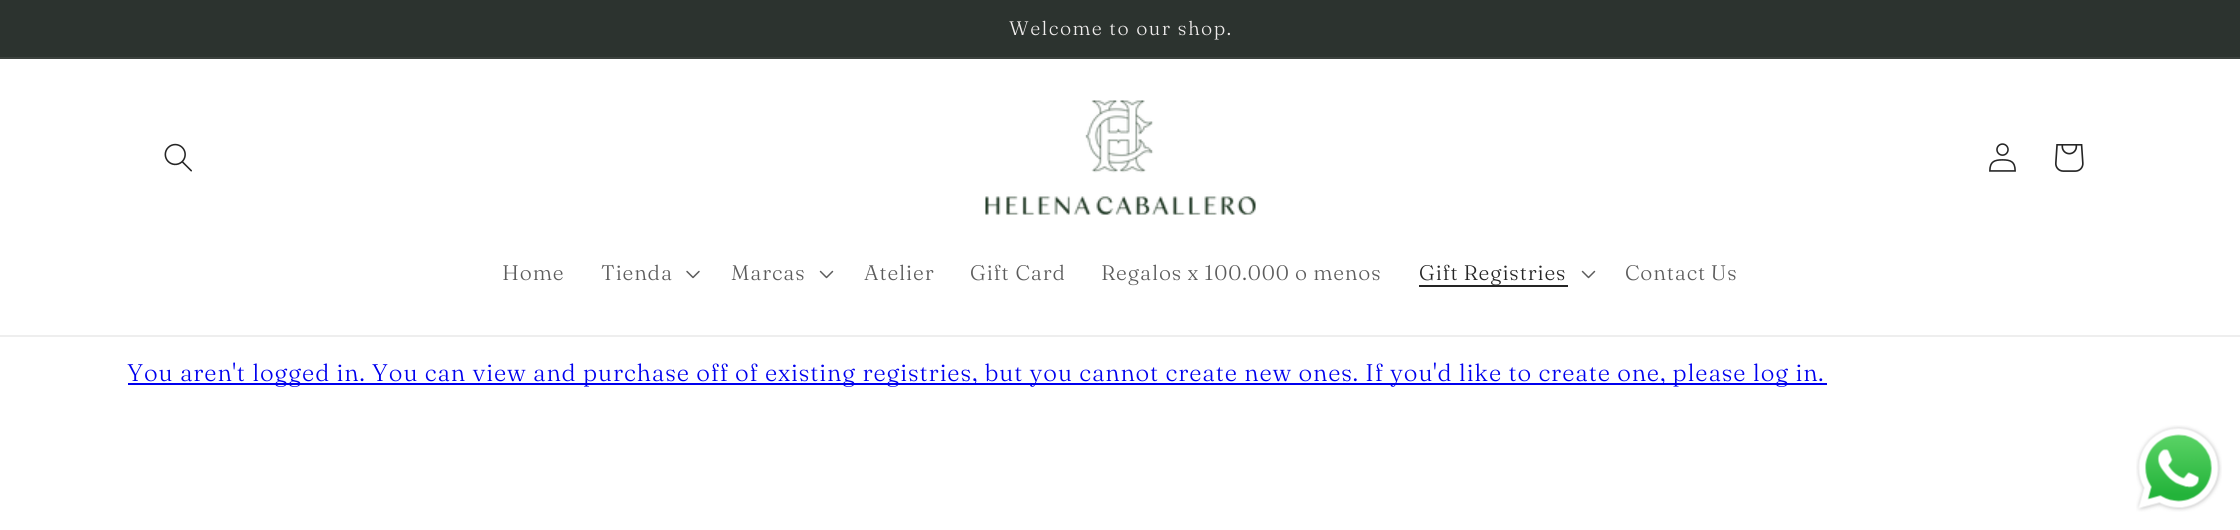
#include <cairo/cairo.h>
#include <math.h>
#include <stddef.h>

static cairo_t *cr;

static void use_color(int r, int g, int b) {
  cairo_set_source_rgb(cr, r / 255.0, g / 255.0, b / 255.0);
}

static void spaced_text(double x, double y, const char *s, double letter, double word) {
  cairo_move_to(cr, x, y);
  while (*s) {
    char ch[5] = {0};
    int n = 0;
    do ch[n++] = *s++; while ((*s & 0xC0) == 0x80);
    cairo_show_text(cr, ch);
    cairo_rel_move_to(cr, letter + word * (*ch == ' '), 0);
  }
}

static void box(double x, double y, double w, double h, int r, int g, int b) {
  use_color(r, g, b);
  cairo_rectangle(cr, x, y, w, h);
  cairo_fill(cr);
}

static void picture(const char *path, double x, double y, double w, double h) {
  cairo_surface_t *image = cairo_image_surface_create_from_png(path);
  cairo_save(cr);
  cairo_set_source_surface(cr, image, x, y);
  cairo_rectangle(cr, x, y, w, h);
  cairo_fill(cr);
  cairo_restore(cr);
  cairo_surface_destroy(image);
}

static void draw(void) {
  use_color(255, 255, 255);
  cairo_paint(cr);
  box(0, 0, 2240, 57, 44, 51, 47);
  box(0, 57, 2240, 2, 60, 66, 62);
  box(0, 335, 2240, 2, 238, 238, 238);
  picture("img_01.png", 164, 143, 28, 29);
  picture("img_02.png", 985, 100, 271, 115);
  picture("img_03.png", 1989, 143, 27, 29);
  picture("img_04.png", 2055, 144, 29, 28);
  picture("img_05.png", 686, 270, 14, 9);
  picture("img_06.png", 819, 270, 15, 9);
  box(1419, 285, 149, 2, 37, 37, 37);
  picture("img_06.png", 1581, 270, 15, 9);
  box(128, 383, 1699, 2, 0, 0, 238);
  picture("img_07.png", 2136, 425, 86, 87);
  cairo_select_font_face(cr, "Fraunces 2 Light", CAIRO_FONT_SLANT_NORMAL, CAIRO_FONT_WEIGHT_NORMAL);
  cairo_set_font_size(cr, 19.5);
  use_color(239, 236, 236);
  spaced_text(1009, 35, "Welcome to our shop.", 1.5, 0);
  cairo_set_font_size(cr, 21);
  use_color(92, 92, 92);
  spaced_text(502, 280, "Home", 0.9, 0);
  spaced_text(601, 280, "Tienda", 0.9, 0);
  spaced_text(731, 280, "Marcas", 0.9, 0);
  spaced_text(864, 280, "Atelier", 0.9, 0);
  spaced_text(970, 280, "Gift Card", 0.9, 0);
  spaced_text(1101, 280, "Regalos x 100.000 o menos", 0.9, -0.5);
  use_color(37, 37, 37);
  spaced_text(1419, 280, "Gift Registries", 0.9, -1);
  use_color(92, 92, 92);
  spaced_text(1625, 280, "Contact Us", 0.9, -1);
  cairo_select_font_face(cr, "Fraunces Light", CAIRO_FONT_SLANT_NORMAL, CAIRO_FONT_WEIGHT_NORMAL);
  cairo_set_font_size(cr, 24);
  use_color(0, 0, 238);
  spaced_text(127, 381, "You aren't logged in. You can view and purchase off of existing registries, but you cannot create new ones. If you'd like to create one, please log in.", 0.9, 0);
}

int main(void) {
  cairo_surface_t *surface = cairo_image_surface_create(CAIRO_FORMAT_RGB24, 2240, 530);
  cr = cairo_create(surface);
  cairo_font_options_t *options = cairo_font_options_create();
  cairo_font_options_set_hint_metrics(options, CAIRO_HINT_METRICS_OFF);
  cairo_font_options_set_hint_style(options, CAIRO_HINT_STYLE_NONE);
  cairo_set_font_options(cr, options);
  cairo_set_miter_limit(cr, 4);
  draw();
  cairo_surface_write_to_png(surface, "out.png");
  cairo_font_options_destroy(options);
  cairo_destroy(cr);
  cairo_surface_destroy(surface);
  return 0;
}
